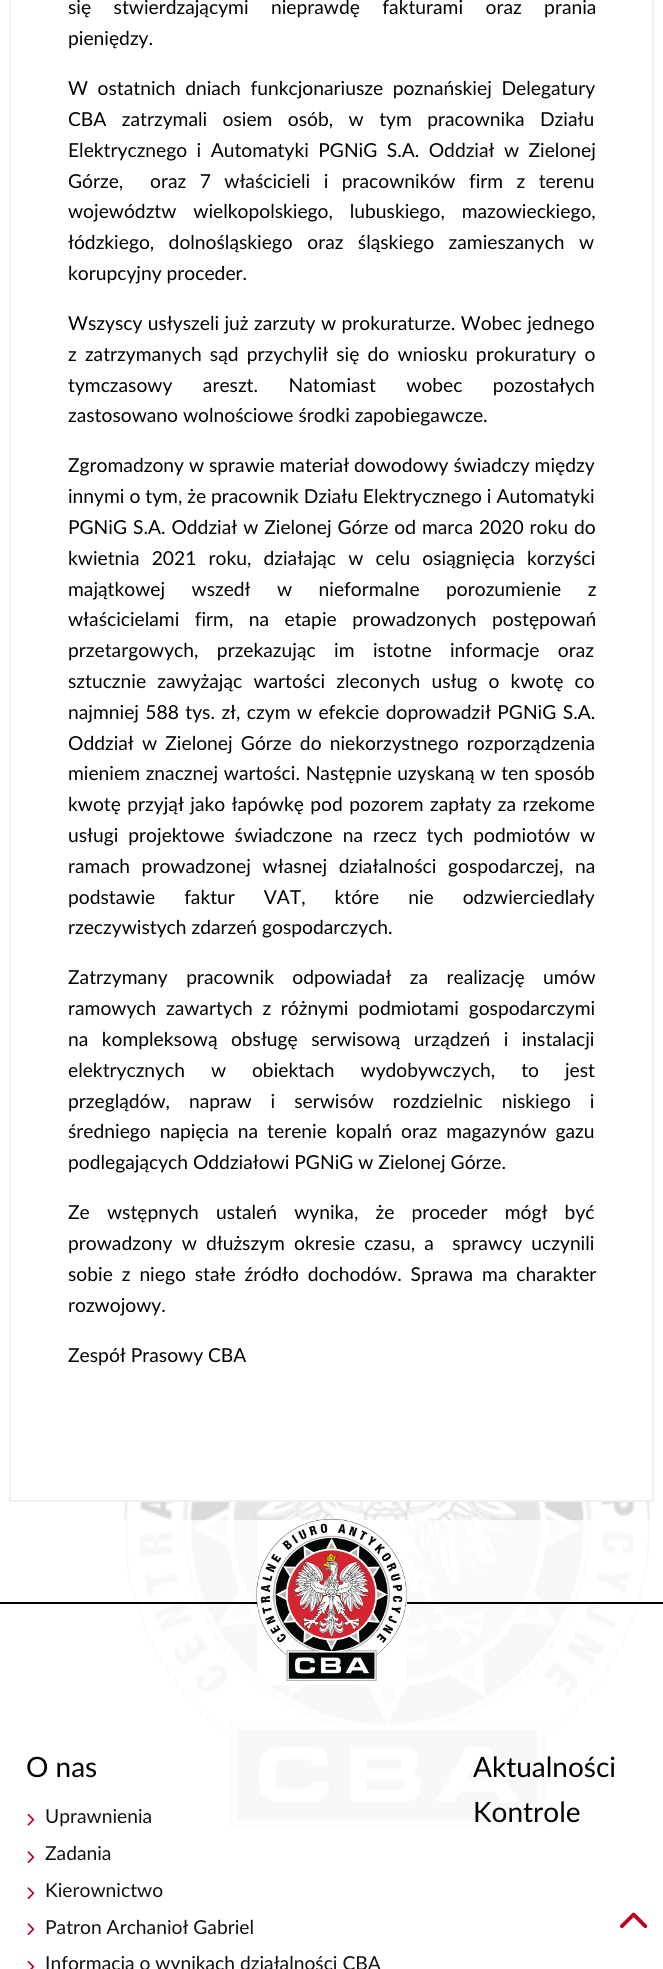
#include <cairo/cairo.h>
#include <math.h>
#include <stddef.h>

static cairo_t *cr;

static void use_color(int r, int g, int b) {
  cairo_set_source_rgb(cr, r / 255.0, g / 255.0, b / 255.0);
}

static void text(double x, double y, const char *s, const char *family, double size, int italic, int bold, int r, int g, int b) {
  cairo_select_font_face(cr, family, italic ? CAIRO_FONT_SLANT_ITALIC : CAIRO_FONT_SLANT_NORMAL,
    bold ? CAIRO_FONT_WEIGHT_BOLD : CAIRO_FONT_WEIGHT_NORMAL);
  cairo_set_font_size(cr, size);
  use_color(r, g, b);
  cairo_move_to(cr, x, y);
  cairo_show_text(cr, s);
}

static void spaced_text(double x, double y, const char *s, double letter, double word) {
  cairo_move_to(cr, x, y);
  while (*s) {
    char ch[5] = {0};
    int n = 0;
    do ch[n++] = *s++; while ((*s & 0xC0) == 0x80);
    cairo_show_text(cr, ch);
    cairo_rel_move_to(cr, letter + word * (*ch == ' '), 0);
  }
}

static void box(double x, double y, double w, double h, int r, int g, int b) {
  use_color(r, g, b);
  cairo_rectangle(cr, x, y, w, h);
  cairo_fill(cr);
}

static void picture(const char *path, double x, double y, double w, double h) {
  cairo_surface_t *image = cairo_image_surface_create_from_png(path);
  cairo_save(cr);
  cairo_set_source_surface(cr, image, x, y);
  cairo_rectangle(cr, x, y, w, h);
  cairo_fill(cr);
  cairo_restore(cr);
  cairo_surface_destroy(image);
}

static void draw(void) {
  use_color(255, 255, 255);
  cairo_paint(cr);
  picture("img_01.png", 124, 1502, 526, 327);
  cairo_rectangle(cr, 10, -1, 643, 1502);
  use_color(240, 240, 240);
  cairo_stroke(cr);
  cairo_set_source_rgba(cr, 1, 1, 1, 0.8);
  cairo_rectangle(cr, 124, 1520, 526, 309);
  cairo_fill(cr);
  box(0, 1602, 663, 2, 0, 0, 0);
  box(257, 1520, 150, 165, 255, 255, 255);
  picture("img_02.png", 256, 1519, 151, 162);
  picture("img_03.png", 27, 1813, 8, 13);
  picture("img_04.png", 27, 1851, 8, 13);
  picture("img_04.png", 27, 1887, 8, 13);
  picture("img_04.png", 27, 1923, 8, 13);
  picture("img_05.png", 27, 1960, 8, 9);
  picture("img_06.png", 620, 1912, 28, 17);
  cairo_select_font_face(cr, "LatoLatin", CAIRO_FONT_SLANT_NORMAL, CAIRO_FONT_WEIGHT_NORMAL);
  cairo_set_font_size(cr, 19.25);
  use_color(1, 1, 1);
  spaced_text(68, 14, "się stwierdzającymi nieprawdę fakturami oraz prania", 0, 17.5);
  text(68, 45, "pieniędzy.", "LatoLatin", 19.25, 0, 0, 1, 1, 1);
  spaced_text(68, 95, "W ostatnich dniach funkcjonariusze poznańskiej Delegatury", 0, 4.75);
  spaced_text(68, 126, "CBA zatrzymali osiem osób, w tym pracownika Działu", 0, 10.5);
  spaced_text(68, 157, "Elektrycznego i Automatyki PGNiG S.A. Oddział w Zielonej", 0, 4.5);
  spaced_text(68, 188, "Górze,  oraz 7 właścicieli i pracowników firm z terenu", 0, 8.5);
  spaced_text(68, 218, "województw wielkopolskiego, lubuskiego, mazowieckiego,", 0, 12);
  spaced_text(68, 249, "łódzkiego, dolnośląskiego oraz śląskiego zamieszanych w", 0, 9.5);
  text(68, 280, "korupcyjny proceder.", "LatoLatin", 19.25, 0, 0, 1, 1, 1);
  spaced_text(68, 330, "Wszyscy usłyszeli już zarzuty w prokuraturze. Wobec jednego", 0, 0.5);
  spaced_text(68, 361, "z zatrzymanych sąd przychylił się do wniosku prokuratury o", 0, 3.25);
  spaced_text(68, 392, "tymczasowy areszt. Natomiast wobec pozostałych", 0, 25.5);
  text(68, 422, "zastosowano wolnościowe środki zapobiegawcze.", "LatoLatin", 19.25, 0, 0, 1, 1, 1);
  text(68, 472, "Zgromadzony w sprawie materiał dowodowy świadczy między", "LatoLatin", 19.25, 0, 0, 1, 1, 1);
  text(68, 503, "innymi o tym, że pracownik Działu Elektrycznego i Automatyki", "LatoLatin", 19.25, 0, 0, 1, 1, 1);
  spaced_text(68, 534, "PGNiG S.A. Oddział w Zielonej Górze od marca 2020 roku do", 0, 1);
  spaced_text(68, 565, "kwietnia 2021 roku, działając w celu osiągnięcia korzyści", 0, 7.25);
  spaced_text(68, 596, "majątkowej wszedł w nieformalne porozumienie z", 0, 21.5);
  spaced_text(68, 626, "właścicielami firm, na etapie prowadzonych postępowań", 0, 10.5);
  spaced_text(68, 657, "przetargowych, przekazując im istotne informacje oraz", 0, 13.5);
  spaced_text(68, 688, "sztucznie zawyżając wartości zleconych usług o kwotę co", 0, 6.25);
  spaced_text(68, 719, "najmniej 588 tys. zł, czym w efekcie doprowadził PGNiG S.A.", 0, 1.5);
  spaced_text(68, 750, "Oddział w Zielonej Górze do niekorzystnego rozporządzenia", 0, 3.25);
  spaced_text(68, 780, "mieniem znacznej wartości. Następnie uzyskaną w ten sposób", 0, 0.75);
  spaced_text(68, 811, "kwotę przyjął jako łapówkę pod pozorem zapłaty za rzekome", 0, 1.5);
  spaced_text(68, 842, "usługi projektowe świadczone na rzecz tych podmiotów w", 0, 5);
  spaced_text(68, 873, "ramach prowadzonej własnej działalności gospodarczej, na", 0, 6.75);
  spaced_text(68, 904, "podstawie faktur VAT, które nie odzwierciedlały", 0, 24);
  text(68, 934, "rzeczywistych zdarzeń gospodarczych.", "LatoLatin", 19.25, 0, 0, 1, 1, 1);
  spaced_text(68, 984, "Zatrzymany pracownik odpowiadał za realizację umów", 0, 13.5);
  spaced_text(68, 1015, "ramowych zawartych z różnymi podmiotami gospodarczymi", 0, 4.75);
  spaced_text(68, 1046, "na kompleksową obsługę serwisową urządzeń i instalacji", 0, 8.5);
  spaced_text(68, 1077, "elektrycznych w obiektach wydobywczych, to jest", 0, 21);
  spaced_text(68, 1108, "przeglądów, napraw i serwisów rozdzielnic niskiego i", 0, 14);
  spaced_text(68, 1138, "średniego napięcia na terenie kopalń oraz magazynów gazu", 0, 4);
  text(68, 1169, "podlegających Oddziałowi PGNiG w Zielonej Górze.", "LatoLatin", 19.25, 0, 0, 1, 1, 1);
  spaced_text(68, 1219, "Ze wstępnych ustaleń wynika, że proceder mógł być", 0, 12.25);
  spaced_text(68, 1250, "prowadzony w dłuższym okresie czasu, a  sprawcy uczynili", 0, 4.25);
  spaced_text(68, 1281, "sobie z niego stałe źródło dochodów. Sprawa ma charakter", 0, 4);
  text(68, 1312, "rozwojowy.", "LatoLatin", 19.25, 0, 0, 1, 1, 1);
  text(68, 1362, "Zespół Prasowy CBA", "LatoLatin", 19.25, 0, 0, 1, 1, 1);
  text(26, 1777, "O nas", "LatoLatin", 28, 0, 0, 1, 1, 1);
  text(45, 1823, "Uprawnienia", "LatoLatin", 19.25, 0, 0, 17, 17, 17);
  text(45, 1860, "Zadania", "LatoLatin", 19.25, 0, 0, 17, 17, 17);
  text(45, 1897, "Kierownictwo", "LatoLatin", 19.25, 0, 0, 17, 17, 17);
  text(45, 1934, "Patron Archanioł Gabriel", "LatoLatin", 19.25, 0, 0, 17, 17, 17);
  text(45, 1970, "Informacja o wynikach działalności CBA", "LatoLatin", 19.25, 0, 0, 17, 17, 17);
  text(473, 1777, "Aktualności", "LatoLatin", 28, 0, 0, 1, 1, 1);
  text(473, 1822, "Kontrole", "LatoLatin", 28, 0, 0, 1, 1, 1);
}

int main(void) {
  cairo_surface_t *surface = cairo_image_surface_create(CAIRO_FORMAT_RGB24, 663, 1969);
  cr = cairo_create(surface);
  cairo_font_options_t *options = cairo_font_options_create();
  cairo_font_options_set_hint_metrics(options, CAIRO_HINT_METRICS_OFF);
  cairo_font_options_set_hint_style(options, CAIRO_HINT_STYLE_NONE);
  cairo_set_font_options(cr, options);
  cairo_set_miter_limit(cr, 4);
  draw();
  cairo_surface_write_to_png(surface, "out.png");
  cairo_font_options_destroy(options);
  cairo_destroy(cr);
  cairo_surface_destroy(surface);
  return 0;
}
